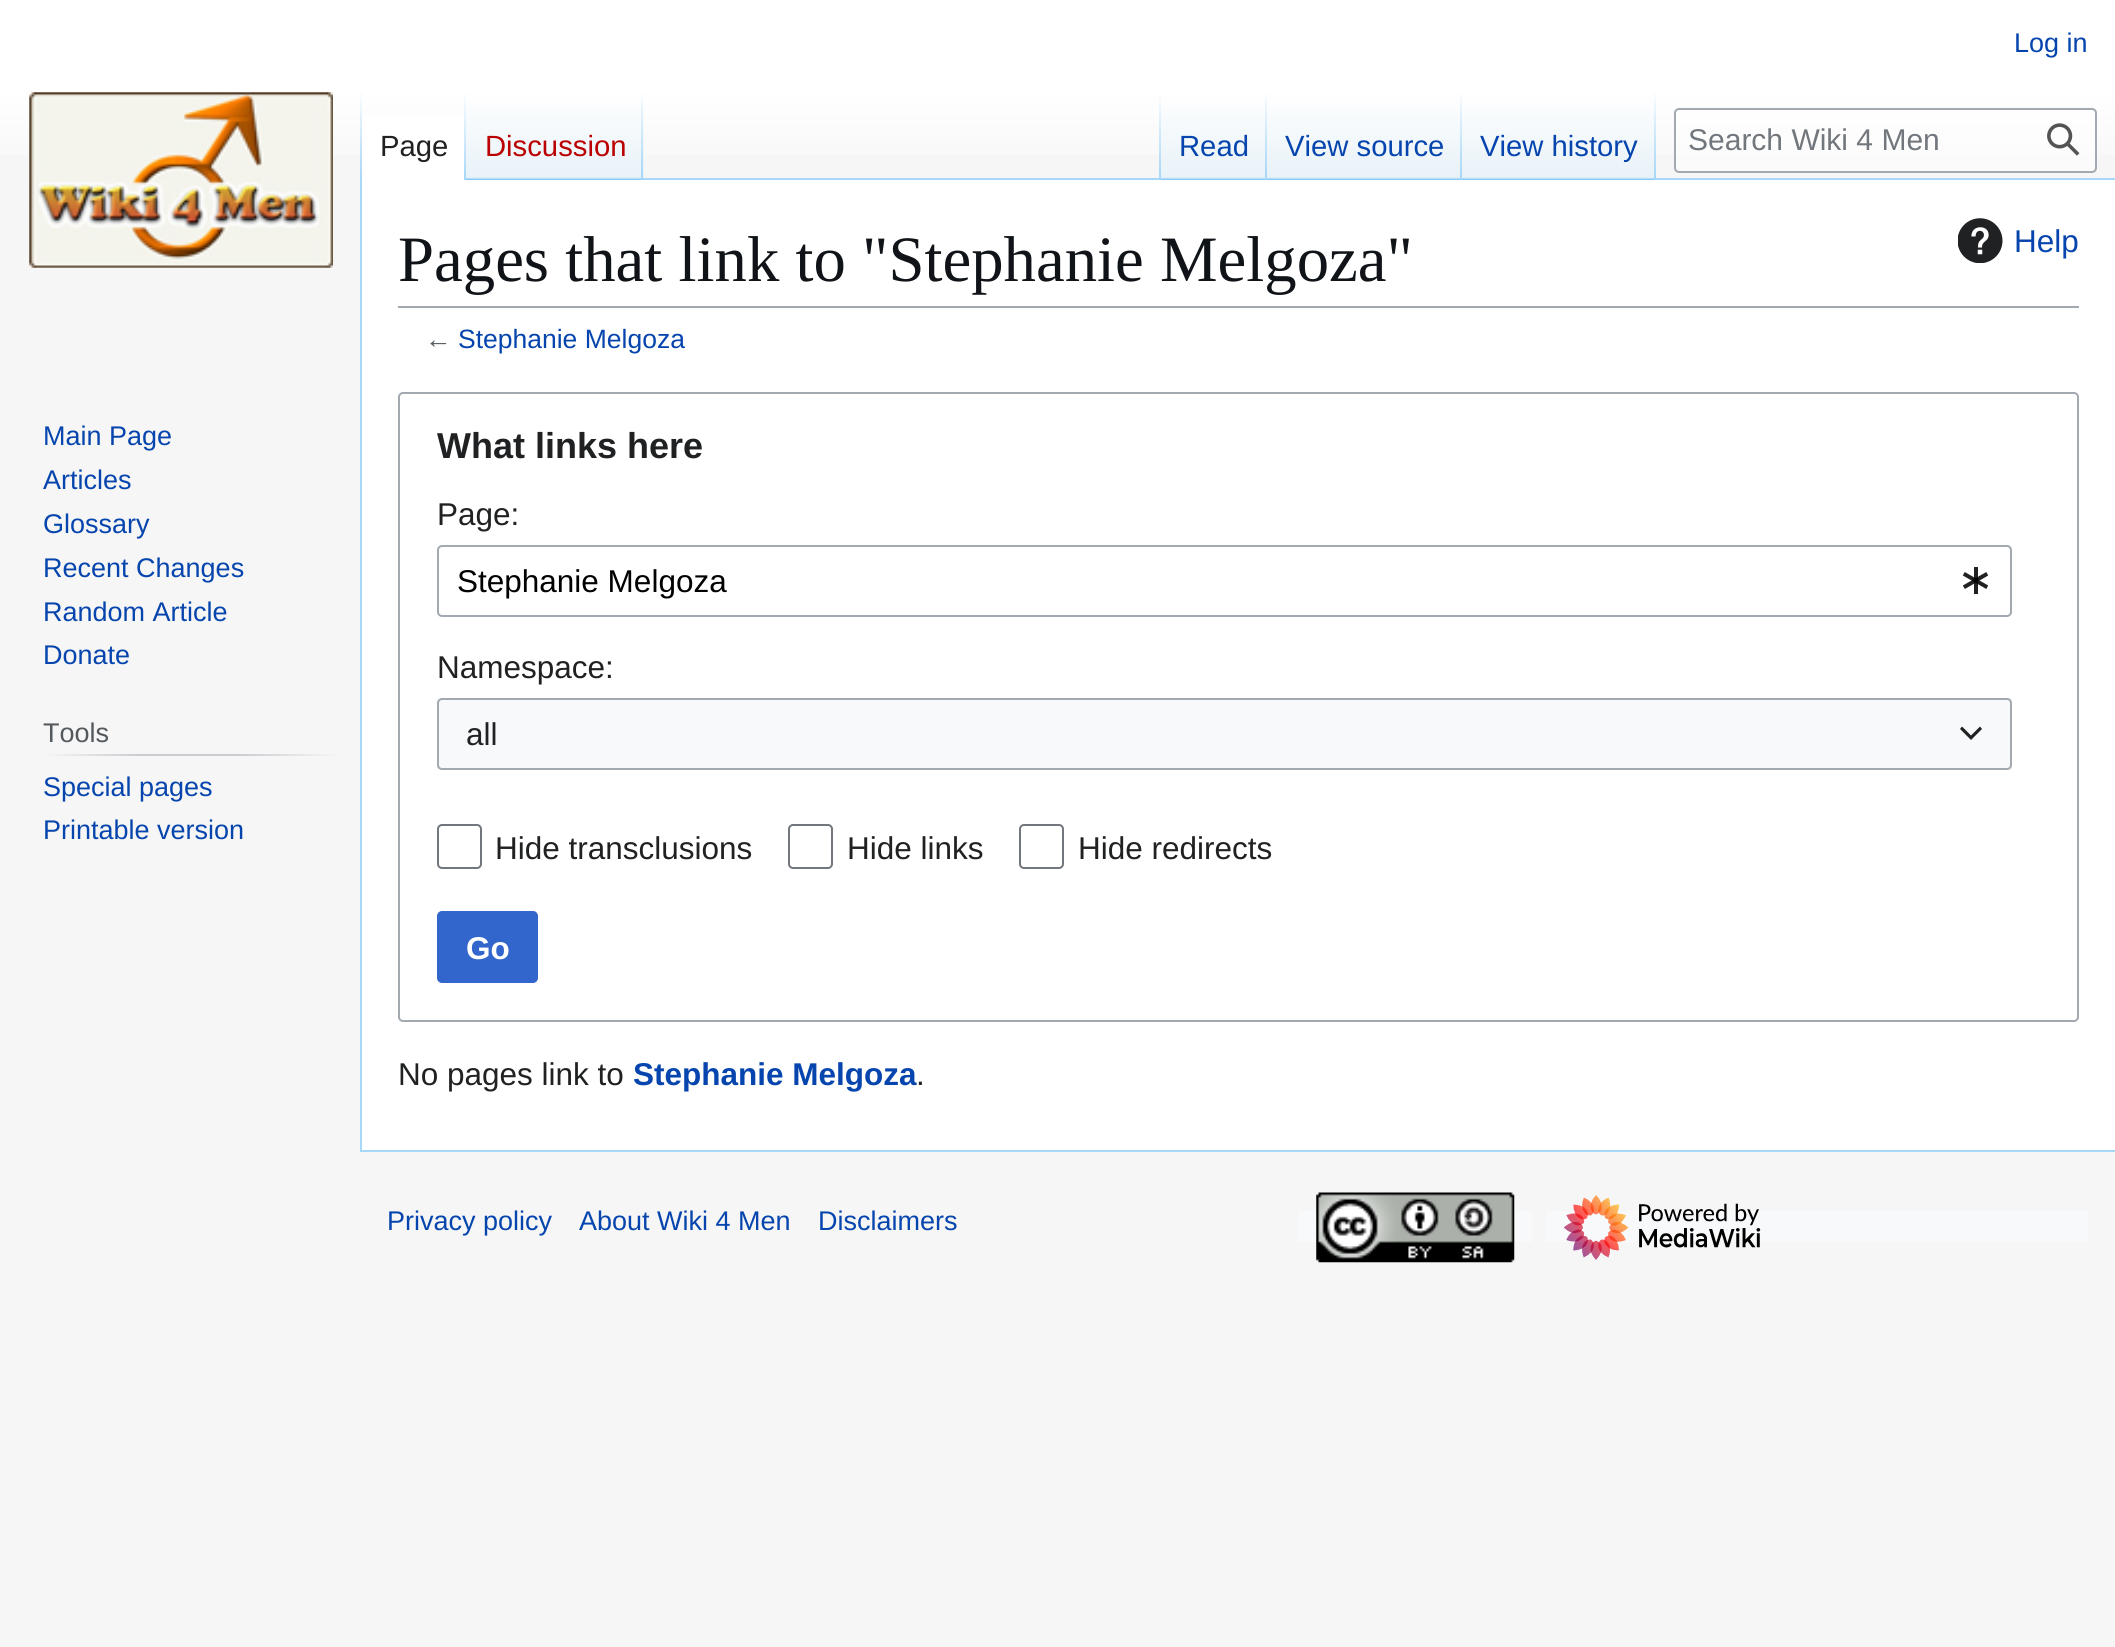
#include <cairo/cairo.h>
#include <math.h>
#include <stddef.h>

static cairo_t *cr;

static void use_color(int r, int g, int b) {
  cairo_set_source_rgb(cr, r / 255.0, g / 255.0, b / 255.0);
}

static void text(double x, double y, const char *s, const char *family, double size, int italic, int bold, int r, int g, int b) {
  cairo_select_font_face(cr, family, italic ? CAIRO_FONT_SLANT_ITALIC : CAIRO_FONT_SLANT_NORMAL,
    bold ? CAIRO_FONT_WEIGHT_BOLD : CAIRO_FONT_WEIGHT_NORMAL);
  cairo_set_font_size(cr, size);
  use_color(r, g, b);
  cairo_move_to(cr, x, y);
  cairo_show_text(cr, s);
}

static void box(double x, double y, double w, double h, int r, int g, int b) {
  use_color(r, g, b);
  cairo_rectangle(cr, x, y, w, h);
  cairo_fill(cr);
}

static void round_rect(double x, double y, double w, double h, double r) {
  cairo_new_sub_path(cr);
  cairo_arc(cr, x + w - r, y + h - r, r, 0, M_PI / 2);
  cairo_arc(cr, x + r, y + h - r, r, M_PI / 2, M_PI);
  cairo_arc(cr, x + r, y + r, r, M_PI, 1.5 * M_PI);
  cairo_arc(cr, x + w - r, y + r, r, 1.5 * M_PI, 2 * M_PI);
  cairo_close_path(cr);
}

static void picture(const char *path, double x, double y, double w, double h) {
  cairo_surface_t *image = cairo_image_surface_create_from_png(path);
  cairo_save(cr);
  cairo_set_source_surface(cr, image, x, y);
  cairo_rectangle(cr, x, y, w, h);
  cairo_fill(cr);
  cairo_restore(cr);
  cairo_surface_destroy(image);
}

static void draw(void) {
  cairo_pattern_t *gradient;
  use_color(246, 246, 246);
  cairo_paint(cr);
  gradient = cairo_pattern_create_linear(1058, 0, 1058, 180);
  cairo_pattern_add_color_stop_rgba(gradient, 0.5, 1, 1, 1, 1);
  cairo_pattern_add_color_stop_rgba(gradient, 1, 0.965, 0.965, 0.965, 1);
  cairo_set_source(cr, gradient);
  cairo_pattern_destroy(gradient);
  cairo_rectangle(cr, 0, 0, 2115, 155);
  cairo_fill(cr);
  box(360, 1150, 1755, 2, 167, 215, 249);
  box(360, 178, 2, 974, 167, 215, 249);
  gradient = cairo_pattern_create_linear(361, 90, 361, 180);
  cairo_pattern_add_color_stop_rgba(gradient, 0, 0.655, 0.843, 0.976, 0);
  cairo_pattern_add_color_stop_rgba(gradient, 1, 0.655, 0.843, 0.976, 1);
  cairo_set_source(cr, gradient);
  cairo_pattern_destroy(gradient);
  cairo_rectangle(cr, 360, 90, 2, 90);
  cairo_fill(cr);
  box(362, 115, 102, 65, 255, 255, 255);
  gradient = cairo_pattern_create_linear(465, 90, 465, 180);
  cairo_pattern_add_color_stop_rgba(gradient, 0, 1, 1, 1, 1);
  cairo_pattern_add_color_stop_rgba(gradient, 1, 0.655, 0.843, 0.976, 1);
  cairo_set_source(cr, gradient);
  cairo_pattern_destroy(gradient);
  cairo_rectangle(cr, 464, 90, 2, 90);
  cairo_fill(cr);
  gradient = cairo_pattern_create_linear(555, 180, 555, 90);
  cairo_pattern_add_color_stop_rgba(gradient, 0, 0.467, 0.757, 0.965, 1);
  cairo_pattern_add_color_stop_rgba(gradient, 0.03, 0.91, 0.949, 0.973, 1);
  cairo_pattern_add_color_stop_rgba(gradient, 1, 1, 1, 1, 1);
  cairo_set_source(cr, gradient);
  cairo_pattern_destroy(gradient);
  cairo_rectangle(cr, 466, 103, 178, 77);
  cairo_fill(cr);
  gradient = cairo_pattern_create_linear(642, 90, 642, 180);
  cairo_pattern_add_color_stop_rgba(gradient, 0, 0.655, 0.843, 0.976, 0);
  cairo_pattern_add_color_stop_rgba(gradient, 1, 0.655, 0.843, 0.976, 1);
  cairo_set_source(cr, gradient);
  cairo_pattern_destroy(gradient);
  cairo_rectangle(cr, 641, 90, 2, 90);
  cairo_fill(cr);
  box(644, 178, 1471, 2, 167, 215, 249);
  gradient = cairo_pattern_create_linear(1160, 90, 1160, 180);
  cairo_pattern_add_color_stop_rgba(gradient, 0, 0.655, 0.843, 0.976, 0);
  cairo_pattern_add_color_stop_rgba(gradient, 1, 0.655, 0.843, 0.976, 1);
  cairo_set_source(cr, gradient);
  cairo_pattern_destroy(gradient);
  cairo_rectangle(cr, 1159, 90, 2, 90);
  cairo_fill(cr);
  gradient = cairo_pattern_create_linear(1214, 180, 1214, 90);
  cairo_pattern_add_color_stop_rgba(gradient, 0, 0.467, 0.757, 0.965, 1);
  cairo_pattern_add_color_stop_rgba(gradient, 0.03, 0.91, 0.949, 0.973, 1);
  cairo_pattern_add_color_stop_rgba(gradient, 1, 1, 1, 1, 1);
  cairo_set_source(cr, gradient);
  cairo_pattern_destroy(gradient);
  cairo_rectangle(cr, 1161, 103, 106, 77);
  cairo_fill(cr);
  gradient = cairo_pattern_create_linear(1266, 90, 1266, 180);
  cairo_pattern_add_color_stop_rgba(gradient, 0, 0.655, 0.843, 0.976, 0);
  cairo_pattern_add_color_stop_rgba(gradient, 1, 0.655, 0.843, 0.976, 1);
  cairo_set_source(cr, gradient);
  cairo_pattern_destroy(gradient);
  cairo_rectangle(cr, 1265, 90, 2, 90);
  cairo_fill(cr);
  gradient = cairo_pattern_create_linear(1365, 180, 1365, 90);
  cairo_pattern_add_color_stop_rgba(gradient, 0, 0.467, 0.757, 0.965, 1);
  cairo_pattern_add_color_stop_rgba(gradient, 0.03, 0.91, 0.949, 0.973, 1);
  cairo_pattern_add_color_stop_rgba(gradient, 1, 1, 1, 1, 1);
  cairo_set_source(cr, gradient);
  cairo_pattern_destroy(gradient);
  cairo_rectangle(cr, 1267, 103, 196, 77);
  cairo_fill(cr);
  gradient = cairo_pattern_create_linear(1461, 90, 1461, 180);
  cairo_pattern_add_color_stop_rgba(gradient, 0, 0.655, 0.843, 0.976, 0);
  cairo_pattern_add_color_stop_rgba(gradient, 1, 0.655, 0.843, 0.976, 1);
  cairo_set_source(cr, gradient);
  cairo_pattern_destroy(gradient);
  cairo_rectangle(cr, 1460, 90, 2, 90);
  cairo_fill(cr);
  gradient = cairo_pattern_create_linear(1559, 180, 1559, 90);
  cairo_pattern_add_color_stop_rgba(gradient, 0, 0.467, 0.757, 0.965, 1);
  cairo_pattern_add_color_stop_rgba(gradient, 0.03, 0.91, 0.949, 0.973, 1);
  cairo_pattern_add_color_stop_rgba(gradient, 1, 1, 1, 1, 1);
  cairo_set_source(cr, gradient);
  cairo_pattern_destroy(gradient);
  cairo_rectangle(cr, 1463, 103, 193, 77);
  cairo_fill(cr);
  gradient = cairo_pattern_create_linear(1655, 90, 1655, 180);
  cairo_pattern_add_color_stop_rgba(gradient, 0, 0.655, 0.843, 0.976, 0);
  cairo_pattern_add_color_stop_rgba(gradient, 1, 0.655, 0.843, 0.976, 1);
  cairo_set_source(cr, gradient);
  cairo_pattern_destroy(gradient);
  cairo_rectangle(cr, 1654, 90, 2, 90);
  cairo_fill(cr);
  cairo_set_source_rgba(cr, 1, 1, 1, 0.5);
  round_rect(1675, 109, 421, 63, 4);
  cairo_fill_preserve(cr);
  use_color(162, 169, 177);
  cairo_stroke(cr);
  picture("img_01.png", 2047, 123, 33, 33);
  picture("img_02.png", 29, 92, 304, 176);
  gradient = cairo_pattern_create_linear(43, 755, 338, 755);
  cairo_pattern_add_color_stop_rgba(gradient, 0, 0.965, 0.965, 0.965, 1);
  cairo_pattern_add_color_stop_rgba(gradient, 0.33, 0.784, 0.8, 0.82, 1);
  cairo_pattern_add_color_stop_rgba(gradient, 0.66, 0.784, 0.8, 0.82, 1);
  cairo_pattern_add_color_stop_rgba(gradient, 1, 0.965, 0.965, 0.965, 1);
  cairo_set_source(cr, gradient);
  cairo_pattern_destroy(gradient);
  cairo_rectangle(cr, 43, 754, 295, 2);
  cairo_fill(cr);
  box(362, 180, 1753, 970, 255, 255, 255);
  box(398, 306, 1681, 2, 162, 169, 177);
  picture("img_03.png", 1958, 218, 45, 45);
  round_rect(399, 393, 1679, 628, 4);
  cairo_stroke(cr);
  round_rect(438, 546, 1573, 70, 4);
  cairo_stroke(cr);
  picture("img_04.png", 1962, 567, 27, 27);
  box(437, 698, 1575, 72, 248, 249, 250);
  round_rect(438, 699, 1573, 70, 4);
  use_color(162, 169, 177);
  cairo_stroke(cr);
  use_color(32, 32, 33);
  cairo_new_path(cr);
  cairo_move_to(cr, 1980, 726.5);
  cairo_line_to(cr, 1971, 735.5);
  cairo_line_to(cr, 1962, 726.5);
  cairo_line_to(cr, 1960, 729);
  cairo_line_to(cr, 1971, 740);
  cairo_line_to(cr, 1982, 729);
  cairo_close_path(cr);
  cairo_fill(cr);
  round_rect(438, 825, 43, 43, 4);
  use_color(114, 119, 125);
  cairo_stroke(cr);
  round_rect(789, 825, 43, 43, 4);
  cairo_stroke(cr);
  round_rect(1020, 825, 43, 43, 4);
  cairo_stroke(cr);
  use_color(51, 102, 204);
  round_rect(438, 912, 99, 70, 4);
  cairo_fill_preserve(cr);
  cairo_stroke(cr);
  box(1298, 1211, 234, 31, 248, 249, 250);
  picture("img_05.png", 1316, 1192, 199, 71);
  box(1546, 1211, 542, 31, 248, 249, 250);
  picture("img_06.png", 1564, 1195, 197, 65);
  text(2014, 52, "Log in", "Liberation Sans", 27, 0, 0, 6, 69, 173);
  text(380, 156, "Page", "Liberation Sans", 29.25, 0, 0, 32, 33, 34);
  text(485, 156, "Discussion", "Liberation Sans", 29.25, 0, 0, 186, 0, 0);
  text(1179, 156, "Read", "Liberation Sans", 29.25, 0, 0, 6, 69, 173);
  text(1285, 156, "View source", "Liberation Sans", 29.25, 0, 0, 6, 69, 173);
  text(1480, 156, "View history", "Liberation Sans", 29.25, 0, 0, 6, 69, 173);
  text(1688, 150, "Search Wiki 4 Men", "Liberation Sans", 30, 0, 0, 114, 119, 125);
  text(43, 445, "Main Page", "Liberation Sans", 27, 0, 0, 6, 69, 173);
  text(43, 489, "Articles", "Liberation Sans", 27, 0, 0, 6, 69, 173);
  text(43, 533, "Glossary", "Liberation Sans", 27, 0, 0, 6, 69, 173);
  text(43, 577, "Recent Changes", "Liberation Sans", 27, 0, 0, 6, 69, 173);
  text(43, 621, "Random Article", "Liberation Sans", 27, 0, 0, 6, 69, 173);
  text(43, 664, "Donate", "Liberation Sans", 27, 0, 0, 6, 69, 173);
  text(43, 742, "Tools", "Liberation Sans", 27, 0, 0, 84, 89, 93);
  text(43, 796, "Special pages", "Liberation Sans", 27, 0, 0, 6, 69, 173);
  text(43, 839, "Printable version", "Liberation Sans", 27, 0, 0, 6, 69, 173);
  text(398, 281, "Pages that link to \"Stephanie Melgoza\"", "Liberation Serif", 64.75, 0, 0, 16, 20, 24);
  text(2014, 252, "Help", "Liberation Sans", 31.5, 0, 0, 6, 69, 173);
  text(425, 348, "←", "Liberation Sans", 26.5, 0, 0, 84, 89, 93);
  text(458, 348, "Stephanie Melgoza", "Liberation Sans", 26.5, 0, 0, 6, 69, 173);
  text(437, 458, "What links here", "Liberation Sans", 36, 0, 1, 32, 33, 34);
  text(437, 525, "Page:", "Liberation Sans", 31.5, 0, 0, 32, 33, 34);
  text(457, 592, "Stephanie Melgoza", "Liberation Sans", 31.5, 0, 0, 0, 0, 0);
  text(437, 678, "Namespace:", "Liberation Sans", 31.5, 0, 0, 32, 33, 34);
  text(466, 745, "all", "Liberation Sans", 31.5, 0, 0, 32, 33, 34);
  text(495, 859, "Hide transclusions", "Liberation Sans", 31.5, 0, 0, 32, 33, 34);
  text(847, 859, "Hide links", "Liberation Sans", 31.5, 0, 0, 32, 33, 34);
  text(1078, 859, "Hide redirects", "Liberation Sans", 31.5, 0, 0, 32, 33, 34);
  text(466, 959, "Go", "Liberation Sans", 31.5, 0, 1, 255, 255, 255);
  text(398, 1085, "No pages link to", "Liberation Sans", 31.5, 0, 0, 32, 33, 34);
  text(633, 1085, "Stephanie Melgoza", "Liberation Sans", 31.5, 0, 1, 6, 69, 173);
  text(916, 1085, ".", "Liberation Sans", 31.5, 0, 0, 32, 33, 34);
  text(387, 1230, "Privacy policy", "Liberation Sans", 27, 0, 0, 6, 69, 173);
  text(579, 1230, "About Wiki 4 Men", "Liberation Sans", 27, 0, 0, 6, 69, 173);
  text(818, 1230, "Disclaimers", "Liberation Sans", 27, 0, 0, 6, 69, 173);
}

int main(void) {
  cairo_surface_t *surface = cairo_image_surface_create(CAIRO_FORMAT_RGB24, 2115, 1647);
  cr = cairo_create(surface);
  cairo_font_options_t *options = cairo_font_options_create();
  cairo_font_options_set_hint_metrics(options, CAIRO_HINT_METRICS_OFF);
  cairo_font_options_set_hint_style(options, CAIRO_HINT_STYLE_NONE);
  cairo_set_font_options(cr, options);
  cairo_set_miter_limit(cr, 4);
  draw();
  cairo_surface_write_to_png(surface, "out.png");
  cairo_font_options_destroy(options);
  cairo_destroy(cr);
  cairo_surface_destroy(surface);
  return 0;
}
